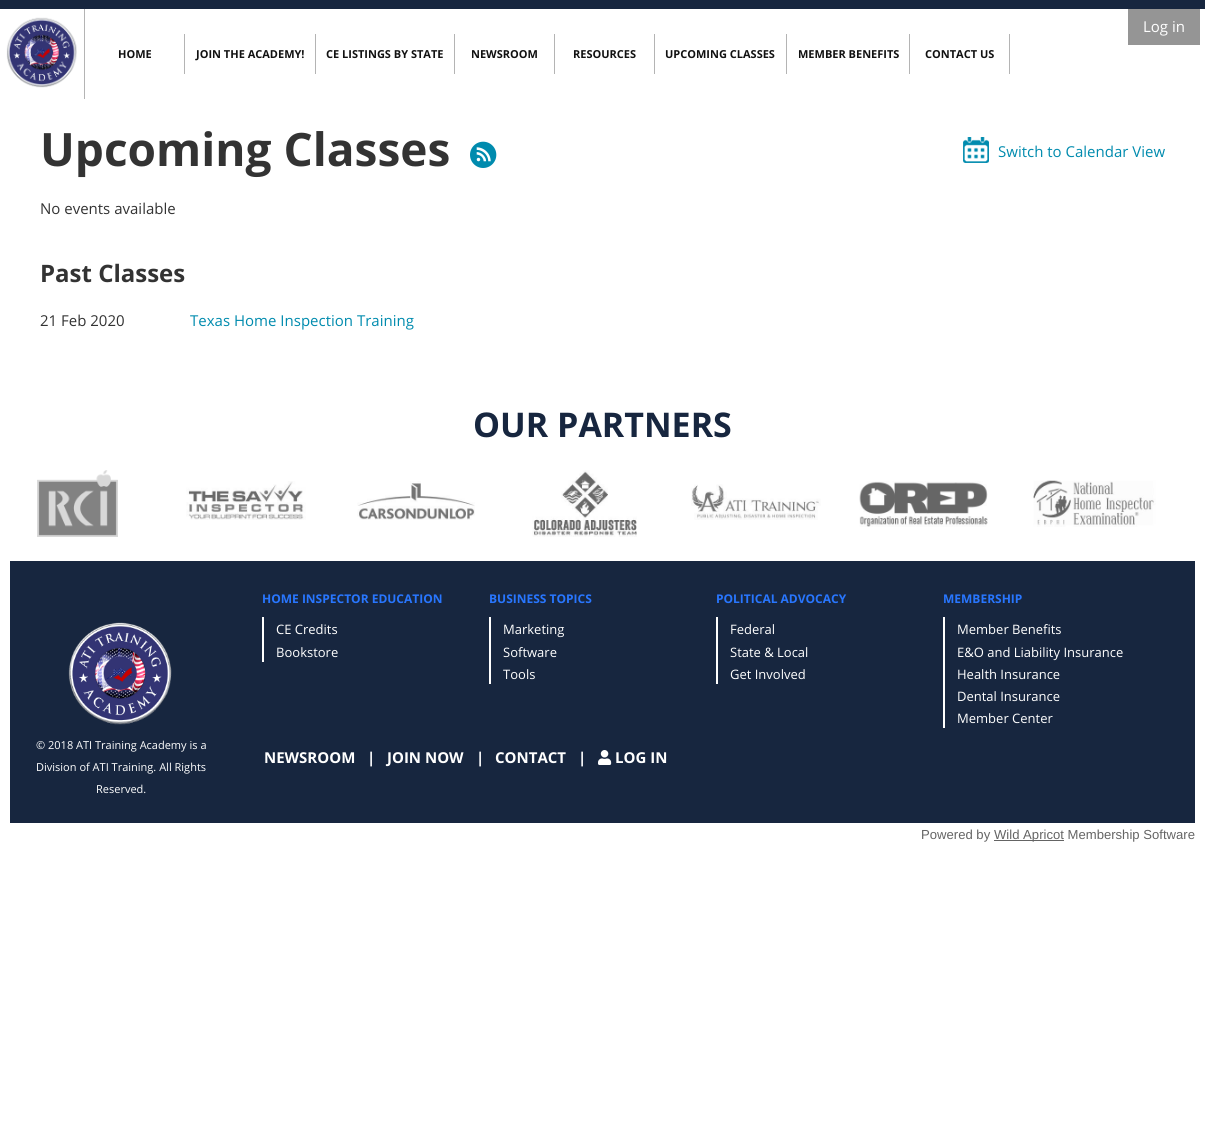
#include <cairo/cairo.h>
#include <math.h>
#include <stddef.h>

static cairo_t *cr;

static void use_color(int r, int g, int b) {
  cairo_set_source_rgb(cr, r / 255.0, g / 255.0, b / 255.0);
}

static void text(double x, double y, const char *s, const char *family, double size, int italic, int bold, int r, int g, int b) {
  cairo_select_font_face(cr, family, italic ? CAIRO_FONT_SLANT_ITALIC : CAIRO_FONT_SLANT_NORMAL,
    bold ? CAIRO_FONT_WEIGHT_BOLD : CAIRO_FONT_WEIGHT_NORMAL);
  cairo_set_font_size(cr, size);
  use_color(r, g, b);
  cairo_move_to(cr, x, y);
  cairo_show_text(cr, s);
}

static void box(double x, double y, double w, double h, int r, int g, int b) {
  use_color(r, g, b);
  cairo_rectangle(cr, x, y, w, h);
  cairo_fill(cr);
}

static void picture(const char *path, double x, double y, double w, double h) {
  cairo_surface_t *image = cairo_image_surface_create_from_png(path);
  cairo_save(cr);
  cairo_set_source_surface(cr, image, x, y);
  cairo_rectangle(cr, x, y, w, h);
  cairo_fill(cr);
  cairo_restore(cr);
  cairo_surface_destroy(image);
}

static void draw(void) {
  use_color(255, 255, 255);
  cairo_paint(cr);
  box(0, 0, 1205, 9, 23, 38, 63);
  box(84, 9, 1, 90, 180, 180, 180);
  picture("img_01.png", 6, 17, 71, 71);
  box(1128, 9, 72, 36, 149, 149, 149);
  box(184, 34, 1, 40, 180, 180, 180);
  box(315, 34, 1, 40, 180, 180, 180);
  box(454, 34, 1, 40, 180, 180, 180);
  box(554, 34, 1, 40, 180, 180, 180);
  box(654, 34, 1, 40, 180, 180, 180);
  box(786, 34, 1, 40, 180, 180, 180);
  box(909, 34, 1, 40, 180, 180, 180);
  box(1009, 34, 1, 40, 180, 180, 180);
  picture("img_02.png", 470, 141, 27, 27);
  picture("img_03.png", 963, 137, 26, 26);
  picture("img_04.png", 37, 470, 81, 67);
  picture("img_05.png", 186, 481, 120, 39);
  picture("img_06.png", 357, 481, 118, 39);
  picture("img_07.png", 532, 470, 105, 67);
  picture("img_08.png", 691, 484, 130, 36);
  picture("img_09.png", 859, 481, 129, 46);
  picture("img_10.png", 1033, 480, 123, 47);
  box(10, 561, 1185, 262, 23, 38, 63);
  picture("img_11.png", 68, 622, 104, 103);
  box(262, 617, 2, 45, 255, 255, 255);
  box(489, 617, 2, 67, 255, 255, 255);
  box(716, 617, 2, 67, 255, 255, 255);
  box(943, 617, 2, 111, 255, 255, 255);
  picture("img_12.png", 598, 750, 14, 15);
  box(994, 840, 70, 1, 100, 100, 100);
  text(1143, 32, "Log in", "Open Sans", 15, 0, 0, 255, 255, 255);
  text(118, 58, "HOME", "Open Sans", 11, 0, 1, 17, 17, 17);
  text(196, 58, "JOIN THE ACADEMY!", "Open Sans", 11, 0, 1, 17, 17, 17);
  text(326, 58, "CE LISTINGS BY STATE", "Open Sans", 11, 0, 1, 17, 17, 17);
  text(471, 58, "NEWSROOM", "Open Sans", 11, 0, 1, 17, 17, 17);
  text(573, 58, "RESOURCES", "Open Sans", 11, 0, 1, 17, 17, 17);
  text(665, 58, "UPCOMING CLASSES", "Open Sans", 11, 0, 1, 17, 17, 17);
  text(798, 58, "MEMBER BENEFITS", "Open Sans", 11, 0, 1, 17, 17, 17);
  text(925, 58, "CONTACT US", "Open Sans", 11, 0, 1, 17, 17, 17);
  text(40, 166, "Upcoming Classes", "Open Sans", 46, 0, 1, 51, 51, 51);
  text(998, 157, "Switch to Calendar View", "Open Sans", 15, 0, 0, 0, 139, 174);
  text(40, 214, "No events available", "Open Sans", 15, 0, 0, 51, 51, 51);
  text(40, 282, "Past Classes", "Open Sans", 24, 0, 1, 51, 51, 51);
  text(40, 326, "21 Feb 2020", "Open Sans", 15, 0, 0, 51, 51, 51);
  text(190, 326, "Texas Home Inspection Training", "Open Sans", 15, 0, 0, 0, 139, 174);
  text(473, 437, "OUR PARTNERS", "Open Sans", 34, 0, 1, 23, 38, 63);
  text(262, 603, "HOME INSPECTOR EDUCATION", "Open Sans", 12, 0, 1, 40, 118, 255);
  text(489, 603, "BUSINESS TOPICS", "Open Sans", 12, 0, 1, 40, 118, 255);
  text(716, 603, "POLITICAL ADVOCACY", "Open Sans", 12, 0, 1, 40, 118, 255);
  text(943, 603, "MEMBERSHIP", "Open Sans", 12, 0, 1, 40, 118, 255);
  text(276, 634, "CE Credits", "Open Sans", 13, 0, 0, 255, 255, 255);
  text(276, 657, "Bookstore", "Open Sans", 13, 0, 0, 255, 255, 255);
  text(503, 634, "Marketing", "Open Sans", 13, 0, 0, 255, 255, 255);
  text(503, 657, "Software", "Open Sans", 13, 0, 0, 255, 255, 255);
  text(503, 679, "Tools", "Open Sans", 13, 0, 0, 255, 255, 255);
  text(730, 634, "Federal", "Open Sans", 13, 0, 0, 255, 255, 255);
  text(730, 657, "State & Local", "Open Sans", 13, 0, 0, 255, 255, 255);
  text(730, 679, "Get Involved", "Open Sans", 13, 0, 0, 255, 255, 255);
  text(957, 634, "Member Benefits", "Open Sans", 13, 0, 0, 255, 255, 255);
  text(957, 657, "E&O and Liability Insurance", "Open Sans", 13, 0, 0, 255, 255, 255);
  text(957, 679, "Health Insurance", "Open Sans", 13, 0, 0, 255, 255, 255);
  text(957, 701, "Dental Insurance", "Open Sans", 13, 0, 0, 255, 255, 255);
  text(957, 723, "Member Center", "Open Sans", 13, 0, 0, 255, 255, 255);
  text(36, 749, "© 2018 ATI Training Academy is a", "Open Sans", 11, 0, 0, 255, 255, 255);
  text(36, 771, "Division of ATI Training. All Rights", "Open Sans", 11, 0, 0, 255, 255, 255);
  text(96, 793, "Reserved.", "Open Sans", 11, 0, 0, 255, 255, 255);
  text(264, 763, "NEWSROOM", "Open Sans", 15, 0, 1, 255, 255, 255);
  text(367, 763, "|", "Open Sans", 15, 0, 1, 255, 255, 255);
  text(387, 763, "JOIN NOW", "Open Sans", 15, 0, 1, 255, 255, 255);
  text(476, 763, "|", "Open Sans", 15, 0, 1, 255, 255, 255);
  text(495, 763, "CONTACT", "Open Sans", 15, 0, 1, 255, 255, 255);
  text(578, 763, "|", "Open Sans", 15, 0, 1, 255, 255, 255);
  text(615, 763, "LOG IN", "Open Sans", 15, 0, 1, 255, 255, 255);
  text(921, 839, "Powered by", "Liberation Sans", 13.1, 0, 0, 100, 100, 100);
  text(994, 839, "Wild Apricot Membership Software", "Liberation Sans", 13.1, 0, 0, 100, 100, 100);
}

int main(void) {
  cairo_surface_t *surface = cairo_image_surface_create(CAIRO_FORMAT_RGB24, 1205, 1147);
  cr = cairo_create(surface);
  cairo_font_options_t *options = cairo_font_options_create();
  cairo_font_options_set_hint_metrics(options, CAIRO_HINT_METRICS_OFF);
  cairo_font_options_set_hint_style(options, CAIRO_HINT_STYLE_NONE);
  cairo_set_font_options(cr, options);
  cairo_set_miter_limit(cr, 4);
  draw();
  cairo_surface_write_to_png(surface, "out.png");
  cairo_font_options_destroy(options);
  cairo_destroy(cr);
  cairo_surface_destroy(surface);
  return 0;
}
